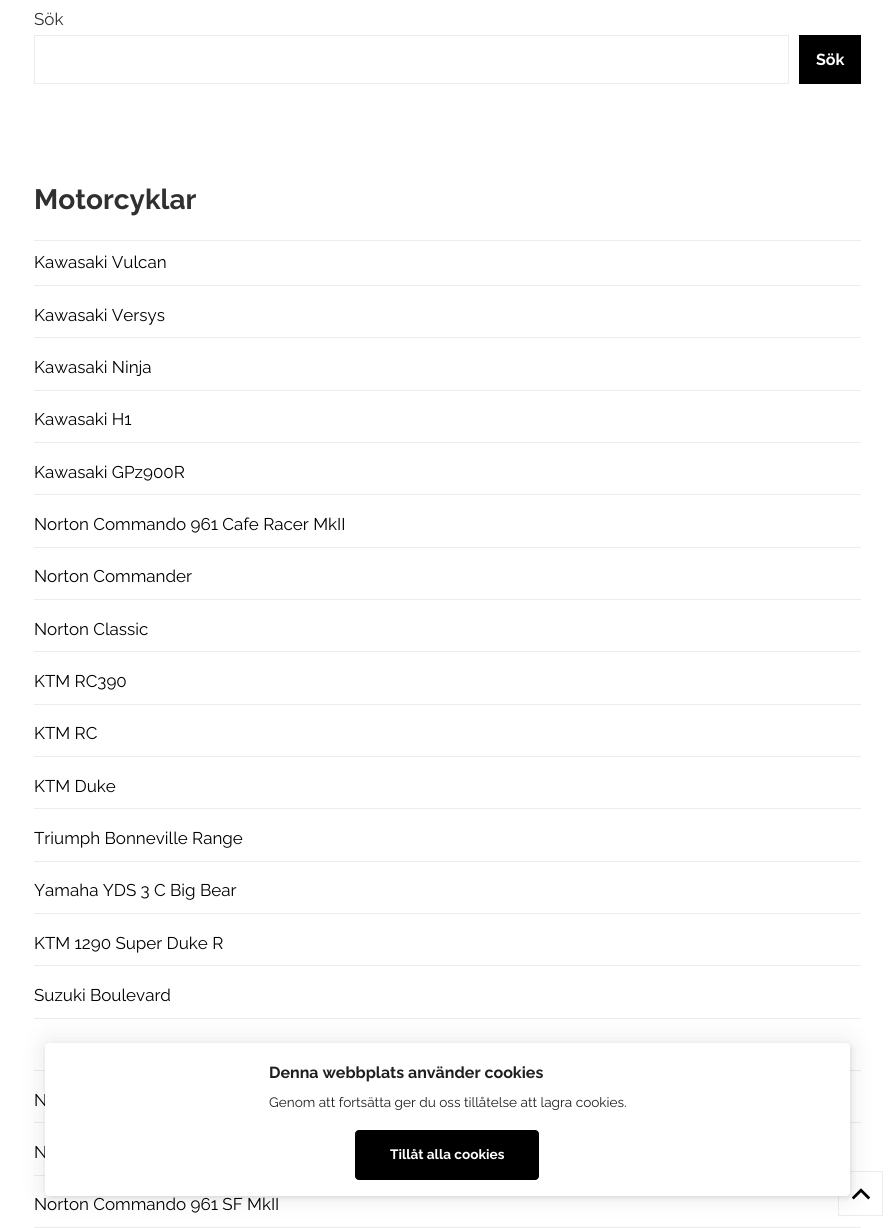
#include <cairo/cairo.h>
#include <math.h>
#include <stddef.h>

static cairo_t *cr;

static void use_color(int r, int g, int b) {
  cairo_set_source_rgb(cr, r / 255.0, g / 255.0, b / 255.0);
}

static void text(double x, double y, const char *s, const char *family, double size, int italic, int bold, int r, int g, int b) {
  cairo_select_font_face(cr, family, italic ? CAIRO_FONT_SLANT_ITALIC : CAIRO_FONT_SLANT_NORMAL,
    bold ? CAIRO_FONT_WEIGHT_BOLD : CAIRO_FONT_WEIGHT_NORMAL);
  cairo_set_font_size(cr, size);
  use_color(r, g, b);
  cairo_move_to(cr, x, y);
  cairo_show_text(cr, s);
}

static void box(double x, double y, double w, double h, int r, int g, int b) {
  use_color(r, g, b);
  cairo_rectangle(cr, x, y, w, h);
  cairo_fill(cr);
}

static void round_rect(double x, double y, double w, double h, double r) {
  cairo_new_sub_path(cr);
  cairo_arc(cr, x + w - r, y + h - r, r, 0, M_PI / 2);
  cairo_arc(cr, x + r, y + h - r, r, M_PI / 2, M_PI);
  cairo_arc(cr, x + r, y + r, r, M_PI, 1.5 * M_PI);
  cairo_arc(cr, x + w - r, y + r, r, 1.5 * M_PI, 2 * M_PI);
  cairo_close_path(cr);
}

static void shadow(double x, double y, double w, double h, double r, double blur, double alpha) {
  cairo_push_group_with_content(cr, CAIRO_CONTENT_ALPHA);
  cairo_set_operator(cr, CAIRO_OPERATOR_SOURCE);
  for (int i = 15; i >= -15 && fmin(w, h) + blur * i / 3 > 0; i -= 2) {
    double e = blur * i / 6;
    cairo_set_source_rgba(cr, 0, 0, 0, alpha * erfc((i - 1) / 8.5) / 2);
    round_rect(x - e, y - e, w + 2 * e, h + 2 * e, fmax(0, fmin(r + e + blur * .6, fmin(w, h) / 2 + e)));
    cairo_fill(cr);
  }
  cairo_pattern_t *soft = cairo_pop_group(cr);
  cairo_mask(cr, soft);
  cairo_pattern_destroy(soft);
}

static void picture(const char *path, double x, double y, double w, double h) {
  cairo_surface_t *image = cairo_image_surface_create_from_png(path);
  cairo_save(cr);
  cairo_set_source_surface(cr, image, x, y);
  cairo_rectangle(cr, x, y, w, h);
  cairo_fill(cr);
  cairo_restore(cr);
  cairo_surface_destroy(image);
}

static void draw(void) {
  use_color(255, 255, 255);
  cairo_paint(cr);
  cairo_rectangle(cr, 34.5, 35.5, 754, 48);
  use_color(236, 236, 236);
  cairo_set_line_width(cr, 1);
  cairo_stroke(cr);
  box(799, 35, 62, 49, 0, 0, 0);
  box(34, 240, 827, 1, 236, 236, 236);
  box(34, 285, 827, 1, 236, 236, 236);
  box(34, 337, 827, 1, 236, 236, 236);
  box(34, 390, 827, 1, 236, 236, 236);
  box(34, 442, 827, 1, 236, 236, 236);
  box(34, 494, 827, 1, 236, 236, 236);
  box(34, 547, 827, 1, 236, 236, 236);
  box(34, 599, 827, 1, 236, 236, 236);
  box(34, 651, 827, 1, 236, 236, 236);
  box(34, 704, 827, 1, 236, 236, 236);
  box(34, 756, 827, 1, 236, 236, 236);
  box(34, 808, 827, 1, 236, 236, 236);
  box(34, 861, 827, 1, 236, 236, 236);
  box(34, 913, 827, 1, 236, 236, 236);
  box(34, 965, 827, 1, 236, 236, 236);
  box(34, 1018, 827, 1, 236, 236, 236);
  box(34, 1070, 827, 1, 236, 236, 236);
  box(34, 1122, 827, 1, 236, 236, 236);
  box(34, 1175, 11, 1, 236, 236, 236);
  box(34, 1227, 827, 1, 236, 236, 236);
  cairo_rectangle(cr, 838.5, 1171.5, 44, 44);
  cairo_stroke(cr);
  picture("img_01.png", 851, 1188, 20, 12);
  use_color(0, 0, 0);
  shadow(46, 1045, 805, 153, 4, 2.5, 0.1);
  shadow(45, 1043, 805, 153, 4, 12.5, 0.1);
  text(34, 25, "Sök", "Raleway Thin", 17, 0, 0, 48, 48, 48);
  text(816, 65, "Sök", "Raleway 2 Thin", 16, 0, 0, 255, 255, 255);
  text(34, 209, "Motorcyklar", "Raleway 2 Thin", 28, 0, 0, 48, 48, 48);
  text(34, 268, "Kawasaki Vulcan", "Raleway Thin", 17, 0, 0, 0, 0, 0);
  text(34, 321, "Kawasaki Versys", "Raleway Thin", 17, 0, 0, 0, 0, 0);
  text(34, 373, "Kawasaki Ninja", "Raleway Thin", 17, 0, 0, 0, 0, 0);
  text(34, 425, "Kawasaki H1", "Raleway Thin", 17, 0, 0, 0, 0, 0);
  text(34, 478, "Kawasaki GPz900R", "Raleway Thin", 17, 0, 0, 0, 0, 0);
  text(34, 530, "Norton Commando 961 Cafe Racer MkII", "Raleway Thin", 17, 0, 0, 0, 0, 0);
  text(34, 582, "Norton Commander", "Raleway Thin", 17, 0, 0, 0, 0, 0);
  text(34, 635, "Norton Classic", "Raleway Thin", 17, 0, 0, 0, 0, 0);
  text(34, 687, "KTM RC390", "Raleway Thin", 17, 0, 0, 0, 0, 0);
  text(34, 739, "KTM RC", "Raleway Thin", 17, 0, 0, 0, 0, 0);
  text(34, 792, "KTM Duke", "Raleway Thin", 17, 0, 0, 0, 0, 0);
  text(34, 844, "Triumph Bonneville Range", "Raleway Thin", 17, 0, 0, 0, 0, 0);
  text(34, 896, "Yamaha YDS 3 C Big Bear", "Raleway Thin", 17, 0, 0, 0, 0, 0);
  text(34, 949, "KTM 1290 Super Duke R", "Raleway Thin", 17, 0, 0, 0, 0, 0);
  text(34, 1001, "Suzuki Boulevard", "Raleway Thin", 17, 0, 0, 0, 0, 0);
  text(34, 1106, "N", "Raleway Thin", 17, 0, 0, 0, 0, 0);
  text(34, 1158, "N", "Raleway Thin", 17, 0, 0, 0, 0, 0);
  text(34, 1210, "Norton Commando 961 SF MkII", "Raleway Thin", 17, 0, 0, 0, 0, 0);
  use_color(255, 255, 255);
  round_rect(45, 1043, 805, 153, 4);
  cairo_fill(cr);
  text(269, 1078, "Denna webbplats använder cookies", "Raleway 2 Thin", 16, 0, 0, 30, 30, 30);
  text(269, 1107, "Genom att fortsätta ger du oss tillåtelse att lagra cookies.", "Raleway Thin", 13.6, 0, 0, 30, 30, 30);
  use_color(0, 0, 0);
  round_rect(355.5, 1130.5, 183, 49, 3.5);
  cairo_fill_preserve(cr);
  cairo_stroke(cr);
  text(390, 1159, "Tillåt alla cookies", "Raleway 2 Thin", 13.6, 0, 0, 255, 255, 255);
}

int main(void) {
  cairo_surface_t *surface = cairo_image_surface_create(CAIRO_FORMAT_RGB24, 895, 1228);
  cr = cairo_create(surface);
  cairo_font_options_t *options = cairo_font_options_create();
  cairo_font_options_set_hint_metrics(options, CAIRO_HINT_METRICS_OFF);
  cairo_font_options_set_hint_style(options, CAIRO_HINT_STYLE_NONE);
  cairo_set_font_options(cr, options);
  cairo_set_miter_limit(cr, 4);
  draw();
  cairo_surface_write_to_png(surface, "out.png");
  cairo_font_options_destroy(options);
  cairo_destroy(cr);
  cairo_surface_destroy(surface);
  return 0;
}
